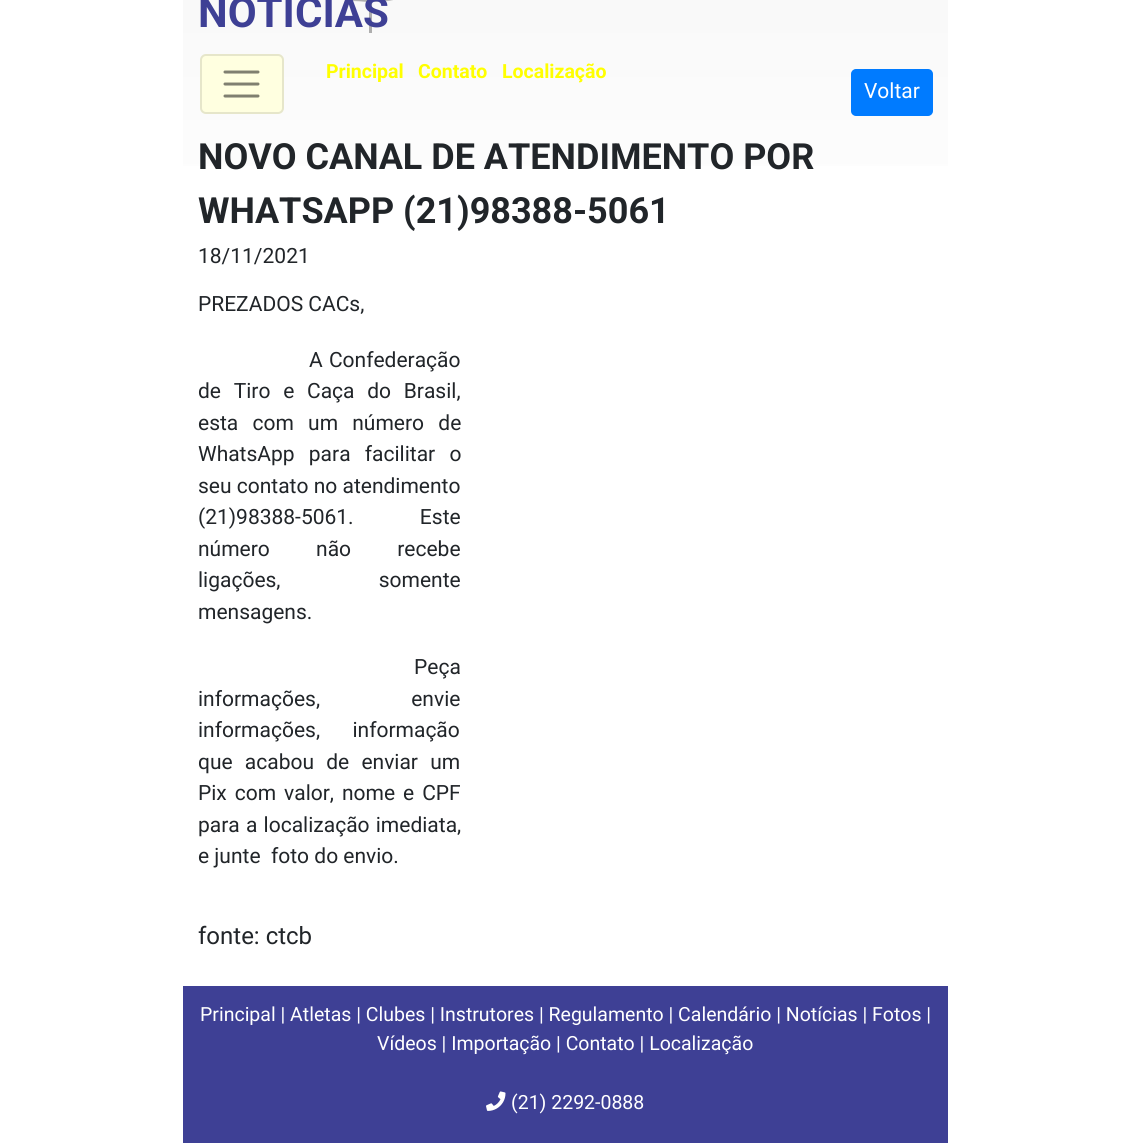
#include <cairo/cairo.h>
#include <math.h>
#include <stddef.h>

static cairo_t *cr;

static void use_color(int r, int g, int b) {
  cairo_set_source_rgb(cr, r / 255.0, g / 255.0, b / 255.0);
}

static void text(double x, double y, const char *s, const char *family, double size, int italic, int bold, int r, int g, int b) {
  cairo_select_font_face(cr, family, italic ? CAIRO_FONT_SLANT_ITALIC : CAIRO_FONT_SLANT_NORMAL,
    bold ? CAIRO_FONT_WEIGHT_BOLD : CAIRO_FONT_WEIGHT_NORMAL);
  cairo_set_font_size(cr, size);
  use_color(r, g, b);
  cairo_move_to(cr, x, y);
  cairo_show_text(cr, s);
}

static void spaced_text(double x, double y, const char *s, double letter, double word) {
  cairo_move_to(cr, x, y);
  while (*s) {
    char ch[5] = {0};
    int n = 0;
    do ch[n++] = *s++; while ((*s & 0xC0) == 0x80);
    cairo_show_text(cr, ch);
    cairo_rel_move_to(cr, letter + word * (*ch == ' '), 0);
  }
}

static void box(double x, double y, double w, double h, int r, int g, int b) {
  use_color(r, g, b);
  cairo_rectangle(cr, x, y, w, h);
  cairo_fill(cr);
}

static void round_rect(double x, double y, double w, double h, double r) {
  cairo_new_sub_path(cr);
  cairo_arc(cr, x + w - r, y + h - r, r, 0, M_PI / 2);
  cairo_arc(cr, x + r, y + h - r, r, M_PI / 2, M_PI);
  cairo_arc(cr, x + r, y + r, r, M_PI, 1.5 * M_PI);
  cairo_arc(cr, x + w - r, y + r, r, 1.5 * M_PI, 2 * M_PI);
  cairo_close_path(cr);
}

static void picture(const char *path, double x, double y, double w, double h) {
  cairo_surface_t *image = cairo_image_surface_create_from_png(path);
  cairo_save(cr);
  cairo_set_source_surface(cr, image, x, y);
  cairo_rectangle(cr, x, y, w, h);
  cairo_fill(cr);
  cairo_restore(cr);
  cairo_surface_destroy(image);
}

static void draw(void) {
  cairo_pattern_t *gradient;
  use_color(255, 255, 255);
  cairo_paint(cr);
  gradient = cairo_pattern_create_linear(566, -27, 566, 273);
  cairo_pattern_add_color_stop_rgba(gradient, 0, 0.973, 0.973, 0.973, 1);
  cairo_pattern_add_color_stop_rgba(gradient, 1, 1, 1, 1, 1);
  cairo_set_source(cr, gradient);
  cairo_pattern_destroy(gradient);
  cairo_rectangle(cr, 183, 0, 765, 166);
  cairo_fill(cr);
  use_color(0, 123, 255);
  round_rect(852, 70, 80, 45, 4);
  cairo_fill_preserve(cr);
  cairo_stroke(cr);
  box(183, 986, 765, 157, 62, 64, 149);
  picture("img_01.png", 486, 1091, 20, 20);
  picture("img_02.png", 348, 0, 45, 33);
  use_color(255, 255, 224);
  round_rect(200, 54, 84, 60, 6);
  cairo_fill(cr);
  round_rect(201, 55, 82, 58, 5);
  cairo_set_source_rgba(cr, 0, 0, 0, 0.1);
  cairo_stroke(cr);
  cairo_new_path(cr);
  cairo_move_to(cr, 225, 72);
  cairo_line_to(cr, 258, 72);
  cairo_move_to(cr, 225, 84);
  cairo_line_to(cr, 258, 84);
  cairo_move_to(cr, 225, 96);
  cairo_line_to(cr, 258, 96);
  use_color(128, 128, 112);
  cairo_set_line_width(cr, 3);
  cairo_set_line_cap(cr, CAIRO_LINE_CAP_ROUND);
  cairo_stroke(cr);
  text(198, 27, "NOTÍCIAS", "Roboto", 42, 0, 1, 62, 64, 149);
  text(864, 98, "Voltar", "Roboto", 21, 0, 0, 255, 255, 255);
  text(198, 169, "NOVO CANAL DE ATENDIMENTO POR", "Roboto", 36, 0, 1, 33, 37, 41);
  text(198, 223, "WHATSAPP (21)98388-5061", "Roboto", 36, 0, 1, 33, 37, 41);
  text(198, 263, "18/11/2021", "Roboto", 21, 0, 0, 33, 37, 41);
  text(198, 311, "PREZADOS CACs,", "Roboto", 21, 0, 0, 33, 37, 41);
  spaced_text(309, 367, "A Confederação", 0, 1);
  spaced_text(198, 398, "de Tiro e Caça do Brasil,", 0, 7.5);
  spaced_text(198, 430, "esta com um número de", 0, 9);
  spaced_text(198, 461, "WhatsApp para facilitar o", 0, 9);
  text(198, 493, "seu contato no atendimento", "Roboto", 21, 0, 0, 33, 37, 41);
  spaced_text(198, 524, "(21)98388-5061. Este", 0, 61);
  spaced_text(198, 556, "número não recebe", 0, 41);
  spaced_text(198, 587, "ligações, somente", 0, 93);
  text(198, 619, "mensagens.", "Roboto", 21, 0, 0, 33, 37, 41);
  text(414, 674, "Peça", "Roboto", 21, 0, 0, 33, 37, 41);
  spaced_text(198, 706, "informações, envie", 0, 86);
  spaced_text(198, 737, "informações,  informação", 0, 11);
  spaced_text(198, 769, "que acabou de enviar um", 0, 7);
  spaced_text(198, 800, "Pix com valor, nome e CPF", 0, 2.75);
  spaced_text(198, 832, "para a localização imediata,", 0, 1);
  text(198, 863, "e junte  foto do envio.", "Roboto", 21, 0, 0, 33, 37, 41);
  text(198, 944, "fonte: ctcb", "Roboto", 24, 0, 0, 33, 37, 41);
  text(200, 1021, "Principal | Atletas | Clubes | Instrutores | Regulamento | Calendário | Notícias | Fotos |", "Roboto", 19.5, 0, 0, 255, 255, 255);
  text(377, 1050, "Vídeos | Importação | Contato | Localização", "Roboto", 19.5, 0, 0, 255, 255, 255);
  text(511, 1109, "(21) 2292-0888", "Roboto", 19.5, 0, 0, 255, 255, 255);
  text(326, 78, "Principal", "Roboto", 19.5, 0, 1, 255, 255, 0);
  text(418, 78, "Contato", "Roboto", 19.5, 0, 1, 255, 255, 0);
  text(502, 78, "Localização", "Roboto", 19.5, 0, 1, 255, 255, 0);
}

int main(void) {
  cairo_surface_t *surface = cairo_image_surface_create(CAIRO_FORMAT_RGB24, 1130, 1143);
  cr = cairo_create(surface);
  cairo_font_options_t *options = cairo_font_options_create();
  cairo_font_options_set_hint_metrics(options, CAIRO_HINT_METRICS_OFF);
  cairo_font_options_set_hint_style(options, CAIRO_HINT_STYLE_NONE);
  cairo_set_font_options(cr, options);
  cairo_set_miter_limit(cr, 4);
  draw();
  cairo_surface_write_to_png(surface, "out.png");
  cairo_font_options_destroy(options);
  cairo_destroy(cr);
  cairo_surface_destroy(surface);
  return 0;
}
